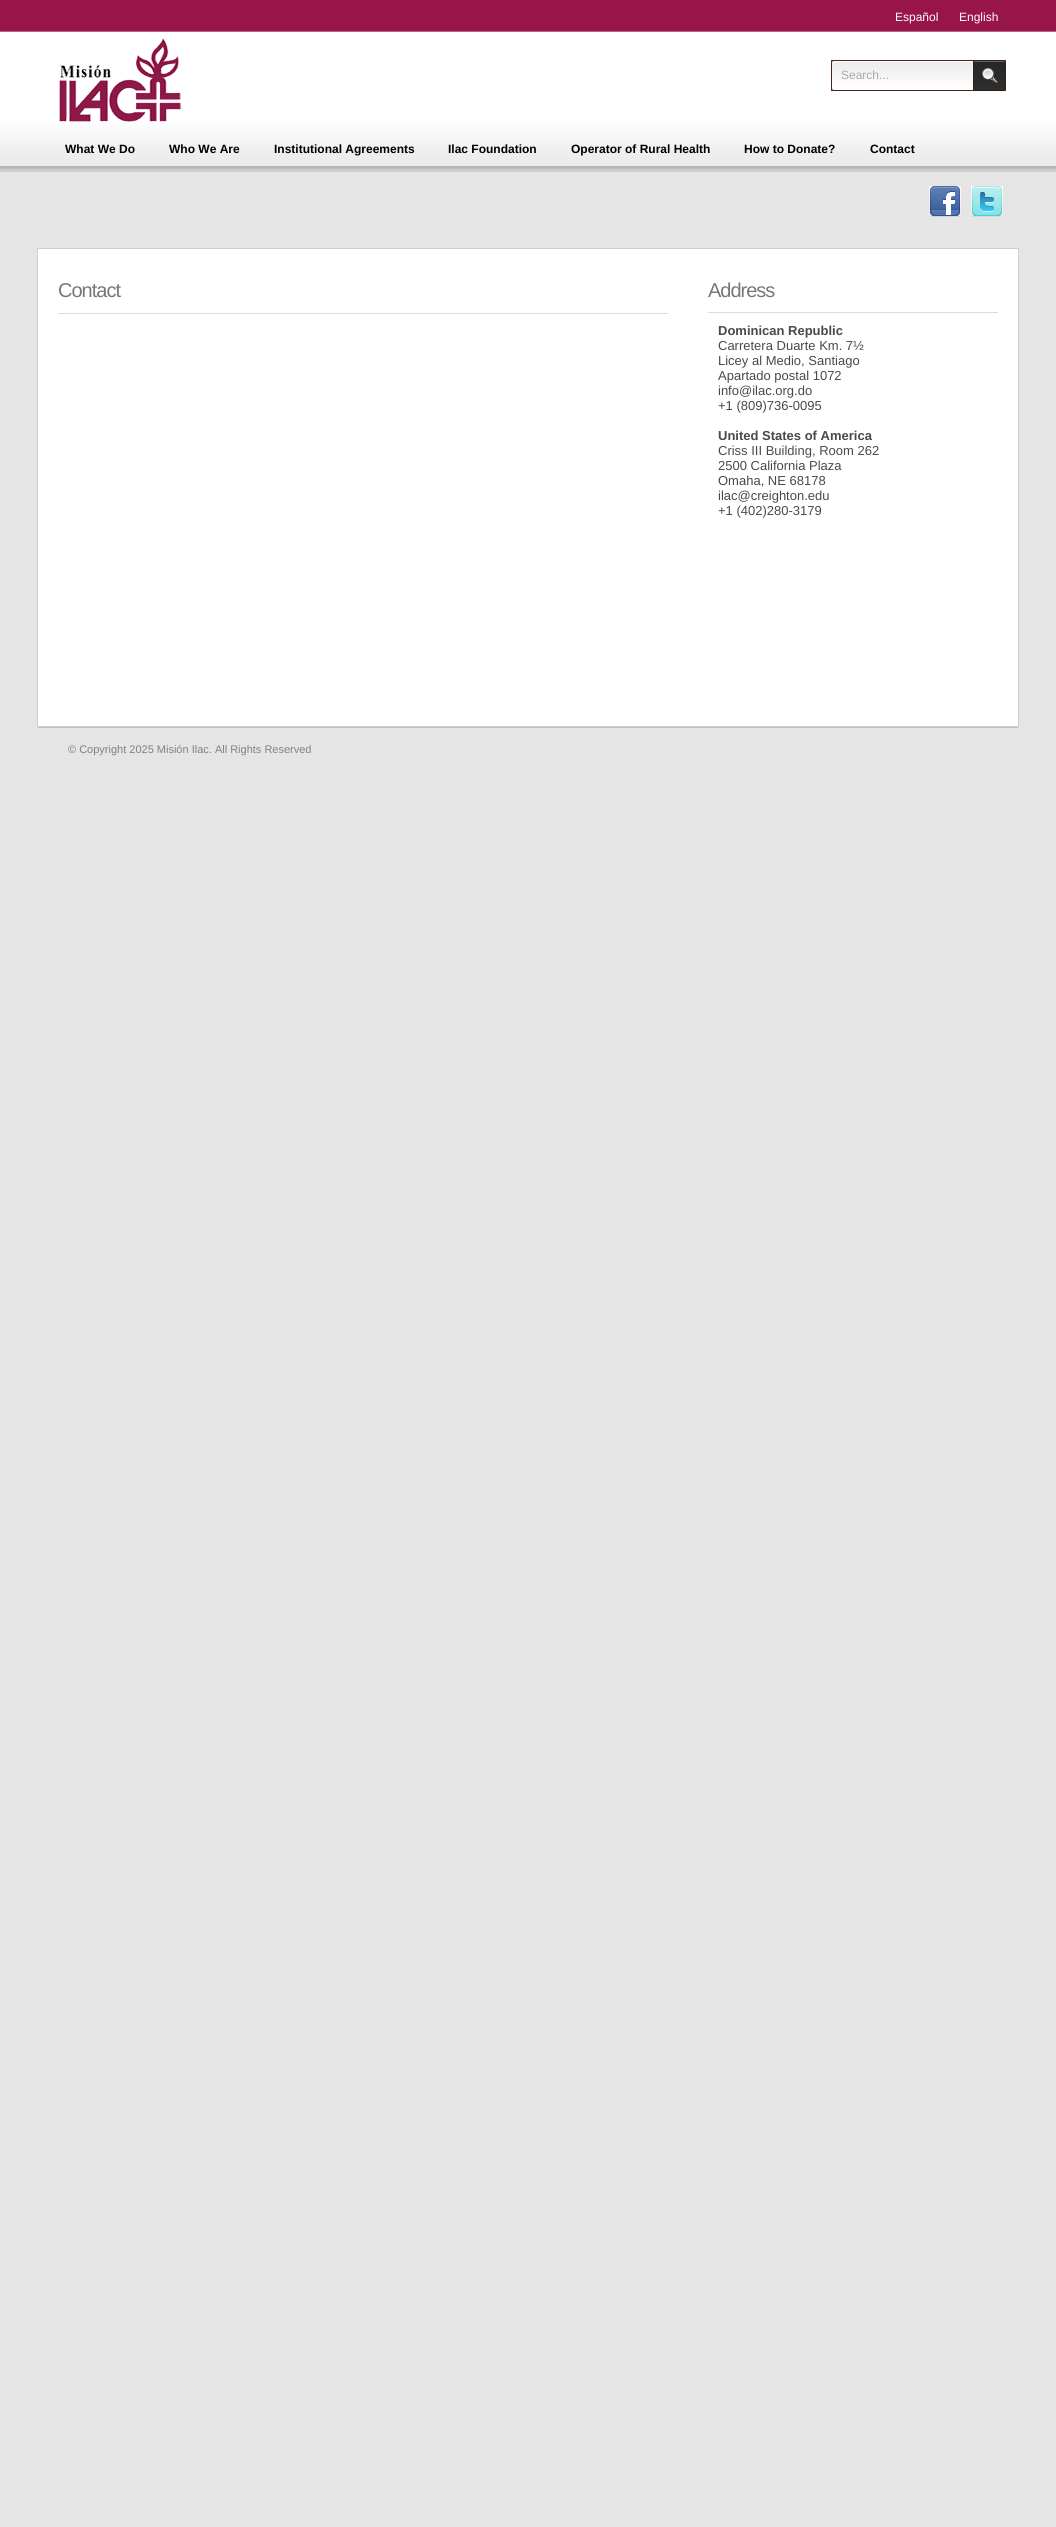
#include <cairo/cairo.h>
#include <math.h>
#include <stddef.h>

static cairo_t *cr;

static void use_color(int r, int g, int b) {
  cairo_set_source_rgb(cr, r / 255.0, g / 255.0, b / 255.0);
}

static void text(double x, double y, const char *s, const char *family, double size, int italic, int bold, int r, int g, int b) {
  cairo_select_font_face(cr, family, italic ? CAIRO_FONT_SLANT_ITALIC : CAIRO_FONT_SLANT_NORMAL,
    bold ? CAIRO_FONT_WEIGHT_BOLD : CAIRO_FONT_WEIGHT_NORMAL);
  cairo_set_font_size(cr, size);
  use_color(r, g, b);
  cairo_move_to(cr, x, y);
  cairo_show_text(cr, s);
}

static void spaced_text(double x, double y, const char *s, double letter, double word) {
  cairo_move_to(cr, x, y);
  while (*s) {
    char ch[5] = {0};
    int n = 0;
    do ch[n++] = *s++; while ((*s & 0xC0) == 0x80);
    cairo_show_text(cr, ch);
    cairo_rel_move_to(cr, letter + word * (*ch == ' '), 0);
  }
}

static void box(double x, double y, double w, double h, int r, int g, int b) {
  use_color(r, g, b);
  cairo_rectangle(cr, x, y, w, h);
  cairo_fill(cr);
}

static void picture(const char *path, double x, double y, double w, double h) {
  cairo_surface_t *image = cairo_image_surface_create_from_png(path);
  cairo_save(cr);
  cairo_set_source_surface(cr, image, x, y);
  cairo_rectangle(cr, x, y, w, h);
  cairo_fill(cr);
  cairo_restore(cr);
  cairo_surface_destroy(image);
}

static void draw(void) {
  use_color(229, 229, 229);
  cairo_paint(cr);
  picture("img_01.png", 0, 0, 1056, 172);
  picture("img_02.png", 59, 38, 122, 84);
  picture("img_03.png", 831, 60, 142, 31);
  picture("img_04.png", 973, 60, 33, 31);
  picture("img_05.png", 929, 186, 32, 32);
  picture("img_06.png", 971, 186, 32, 32);
  use_color(255, 255, 255);
  cairo_rectangle(cr, 37.5, 248.5, 981, 478);
  cairo_fill_preserve(cr);
  use_color(207, 207, 207);
  cairo_set_line_width(cr, 1);
  cairo_stroke(cr);
  box(58, 313, 610, 1, 220, 220, 220);
  box(708, 312, 290, 1, 220, 220, 220);
  box(38, 727, 980, 1, 191, 191, 191);
  text(895, 21, "Español", "Liberation Sans", 12, 0, 0, 255, 255, 255);
  text(959, 21, "English", "Liberation Sans", 12, 0, 0, 255, 255, 255);
  text(841, 79, "Search...", "Liberation Sans", 12, 0, 0, 169, 169, 169);
  text(65, 153, "What We Do", "Liberation Sans", 12, 0, 1, 0, 0, 0);
  text(169, 153, "Who We Are", "Liberation Sans", 12, 0, 1, 0, 0, 0);
  text(274, 153, "Institutional Agreements", "Liberation Sans", 12, 0, 1, 0, 0, 0);
  text(448, 153, "Ilac Foundation", "Liberation Sans", 12, 0, 1, 0, 0, 0);
  text(571, 153, "Operator of Rural Health", "Liberation Sans", 12, 0, 1, 0, 0, 0);
  text(744, 153, "How to Donate?", "Liberation Sans", 12, 0, 1, 0, 0, 0);
  text(870, 153, "Contact", "Liberation Sans", 12, 0, 1, 0, 0, 0);
  cairo_select_font_face(cr, "Liberation Sans", CAIRO_FONT_SLANT_NORMAL, CAIRO_FONT_WEIGHT_NORMAL);
  cairo_set_font_size(cr, 20);
  use_color(119, 119, 119);
  spaced_text(58, 297, "Contact", -1, 0);
  spaced_text(708, 297, "Address", -1, 0);
  text(718, 335, "Dominican Republic", "Liberation Sans", 13, 0, 1, 73, 73, 73);
  text(718, 350, "Carretera Duarte Km. 7½", "Liberation Sans", 13, 0, 0, 73, 73, 73);
  text(718, 365, "Licey al Medio, Santiago", "Liberation Sans", 13, 0, 0, 73, 73, 73);
  text(718, 380, "Apartado postal 1072", "Liberation Sans", 13, 0, 0, 73, 73, 73);
  text(718, 395, "info@ilac.org.do", "Liberation Sans", 13, 0, 0, 73, 73, 73);
  text(718, 410, "+1 (809)736-0095", "Liberation Sans", 13, 0, 0, 73, 73, 73);
  text(718, 440, "United States of America", "Liberation Sans", 13, 0, 1, 73, 73, 73);
  text(718, 455, "Criss III Building, Room 262", "Liberation Sans", 13, 0, 0, 73, 73, 73);
  text(718, 470, "2500 California Plaza", "Liberation Sans", 13, 0, 0, 73, 73, 73);
  text(718, 485, "Omaha, NE 68178", "Liberation Sans", 13, 0, 0, 73, 73, 73);
  text(718, 500, "ilac@creighton.edu", "Liberation Sans", 13, 0, 0, 73, 73, 73);
  text(718, 515, "+1 (402)280-3179", "Liberation Sans", 13, 0, 0, 73, 73, 73);
  text(68, 753, "© Copyright 2025 Misión Ilac. All Rights Reserved", "Liberation Sans", 11, 0, 0, 129, 129, 129);
}

int main(void) {
  cairo_surface_t *surface = cairo_image_surface_create(CAIRO_FORMAT_RGB24, 1056, 2527);
  cr = cairo_create(surface);
  cairo_font_options_t *options = cairo_font_options_create();
  cairo_font_options_set_hint_metrics(options, CAIRO_HINT_METRICS_OFF);
  cairo_font_options_set_hint_style(options, CAIRO_HINT_STYLE_NONE);
  cairo_set_font_options(cr, options);
  cairo_set_miter_limit(cr, 4);
  draw();
  cairo_surface_write_to_png(surface, "out.png");
  cairo_font_options_destroy(options);
  cairo_destroy(cr);
  cairo_surface_destroy(surface);
  return 0;
}
